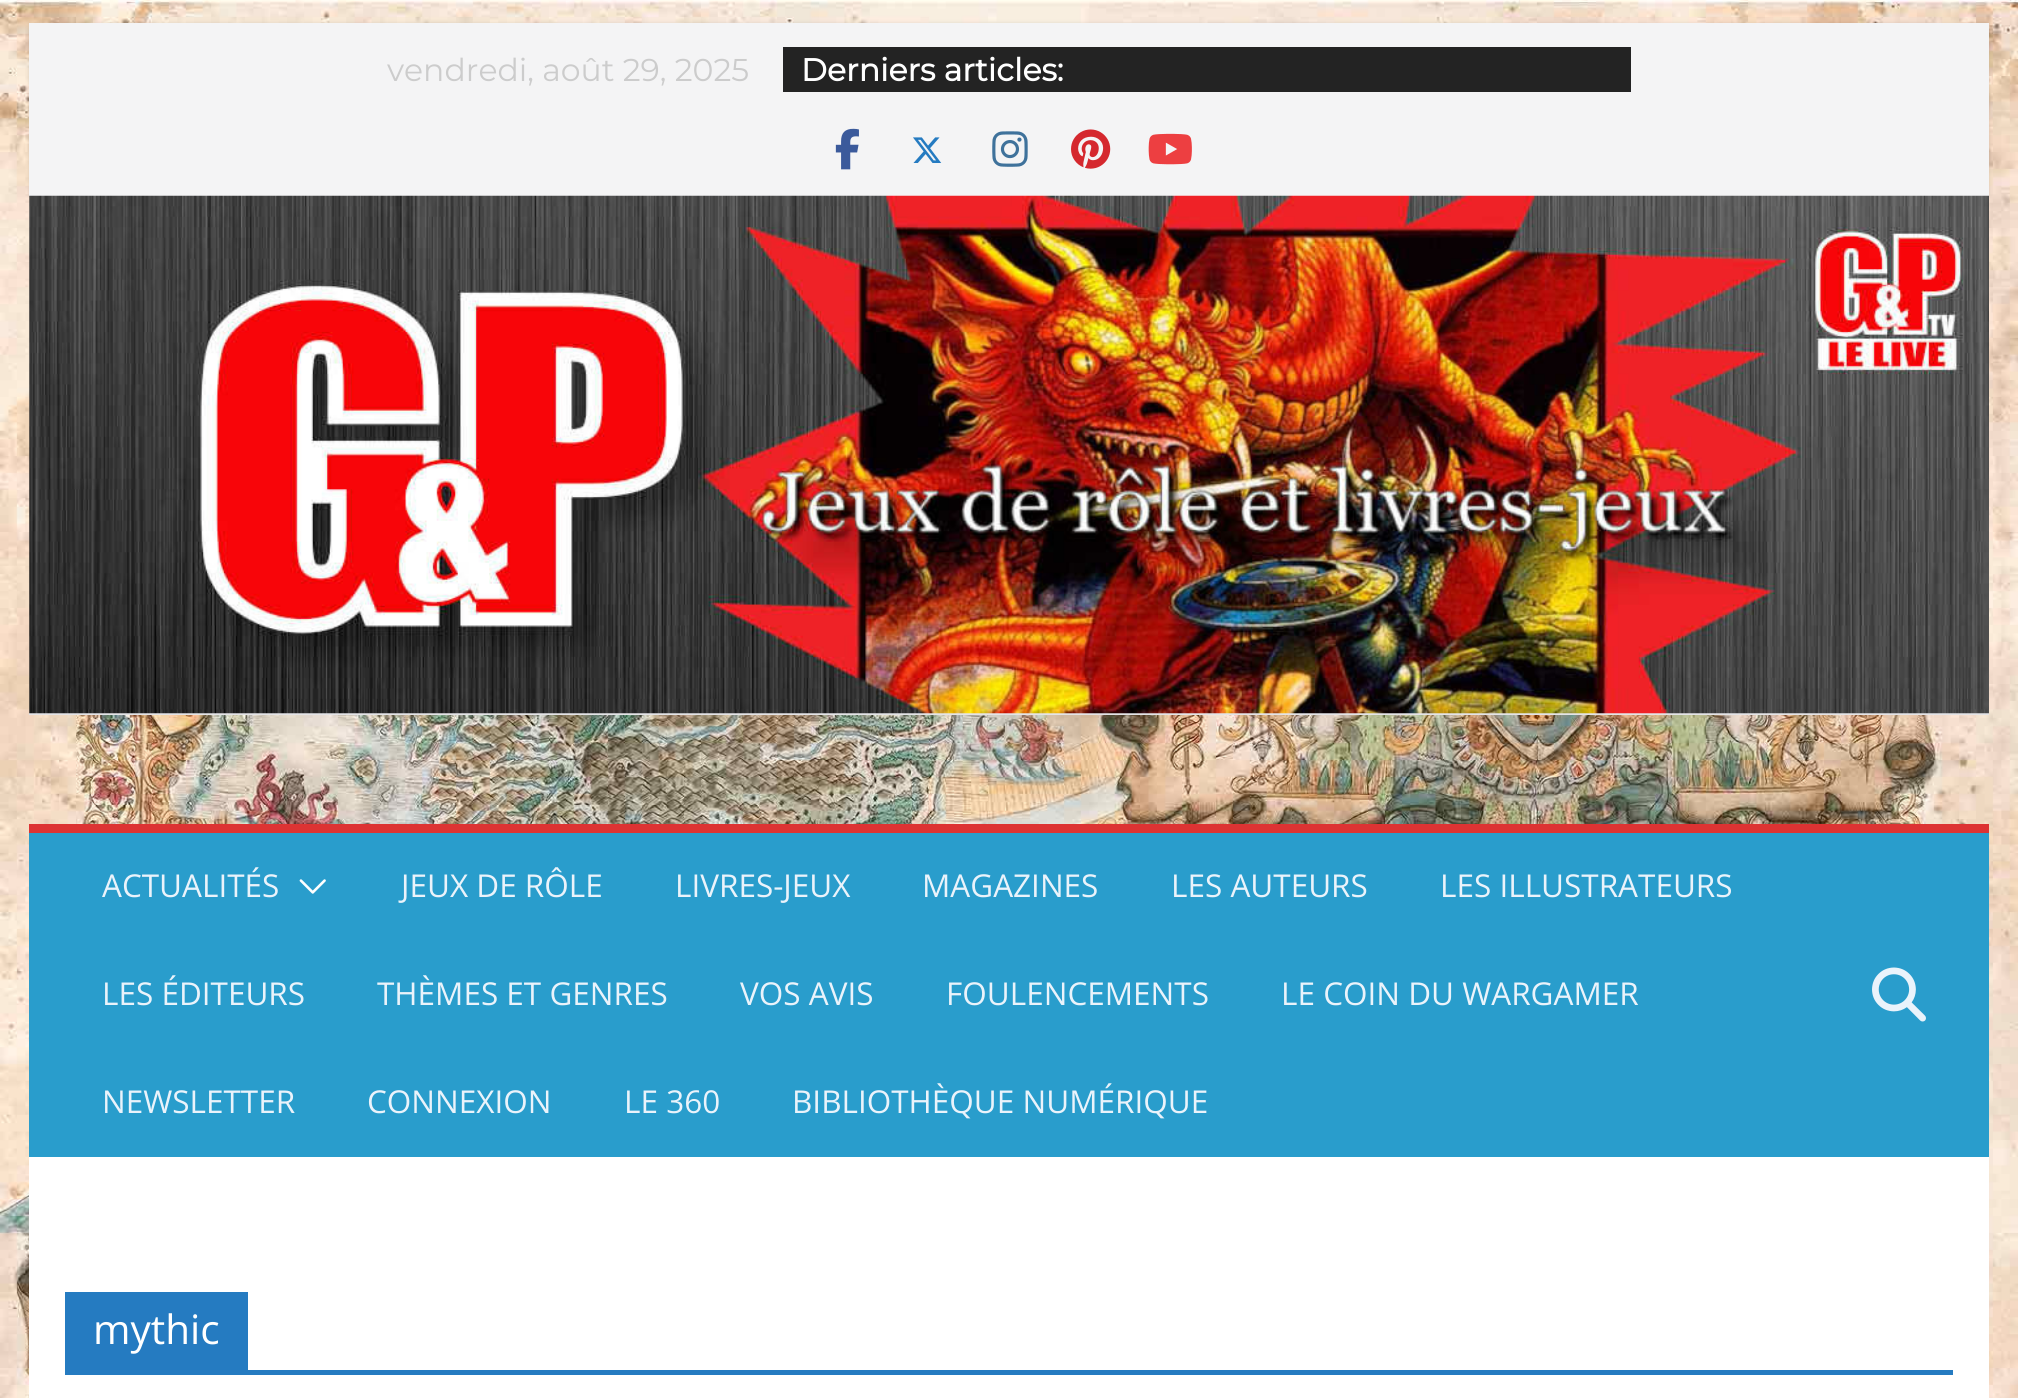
#include <cairo/cairo.h>
#include <math.h>
#include <stddef.h>

static cairo_t *cr;

static void use_color(int r, int g, int b) {
  cairo_set_source_rgb(cr, r / 255.0, g / 255.0, b / 255.0);
}

static void text(double x, double y, const char *s, const char *family, double size, int italic, int bold, int r, int g, int b) {
  cairo_select_font_face(cr, family, italic ? CAIRO_FONT_SLANT_ITALIC : CAIRO_FONT_SLANT_NORMAL,
    bold ? CAIRO_FONT_WEIGHT_BOLD : CAIRO_FONT_WEIGHT_NORMAL);
  cairo_set_font_size(cr, size);
  use_color(r, g, b);
  cairo_move_to(cr, x, y);
  cairo_show_text(cr, s);
}

static void box(double x, double y, double w, double h, int r, int g, int b) {
  use_color(r, g, b);
  cairo_rectangle(cr, x, y, w, h);
  cairo_fill(cr);
}

static void round_rect(double x, double y, double w, double h, double r) {
  cairo_new_sub_path(cr);
  cairo_arc(cr, x + w - r, y + h - r, r, 0, M_PI / 2);
  cairo_arc(cr, x + r, y + h - r, r, M_PI / 2, M_PI);
  cairo_arc(cr, x + r, y + r, r, M_PI, 1.5 * M_PI);
  cairo_arc(cr, x + w - r, y + r, r, 1.5 * M_PI, 2 * M_PI);
  cairo_close_path(cr);
}

static void shadow(double x, double y, double w, double h, double r, double blur, double alpha) {
  cairo_push_group_with_content(cr, CAIRO_CONTENT_ALPHA);
  cairo_set_operator(cr, CAIRO_OPERATOR_SOURCE);
  for (int i = 15; i >= -15 && fmin(w, h) + blur * i / 3 > 0; i -= 2) {
    double e = blur * i / 6;
    cairo_set_source_rgba(cr, 0, 0, 0, alpha * erfc((i - 1) / 8.5) / 2);
    round_rect(x - e, y - e, w + 2 * e, h + 2 * e, fmax(0, fmin(r + e + blur * .6, fmin(w, h) / 2 + e)));
    cairo_fill(cr);
  }
  cairo_pattern_t *soft = cairo_pop_group(cr);
  cairo_mask(cr, soft);
  cairo_pattern_destroy(soft);
}

static void picture(const char *path, double x, double y, double w, double h) {
  cairo_surface_t *image = cairo_image_surface_create_from_png(path);
  cairo_save(cr);
  cairo_set_source_surface(cr, image, x, y);
  cairo_rectangle(cr, x, y, w, h);
  cairo_fill(cr);
  cairo_restore(cr);
  cairo_surface_destroy(image);
}

static void draw(void) {
  use_color(255, 255, 255);
  cairo_paint(cr);
  picture("img_01.png", 0, 0, 2018, 1398);
  use_color(0, 0, 0);
  shadow(29, 23, 1960, 173, 0, 2, 0.1);
  box(29, 23, 1960, 173, 244, 244, 245);
  box(783, 47, 848, 45, 35, 35, 35);
  picture("img_02.png", 835, 128, 24, 42);
  picture("img_03.png", 913, 137, 29, 26);
  picture("img_04.png", 992, 131, 36, 36);
  picture("img_05.png", 1071, 129, 40, 40);
  picture("img_06.png", 1148, 133, 44, 32);
  box(29, 713, 1960, 2, 228, 228, 231);
  picture("img_07.png", 29, 195, 1960, 519);
  box(29, 833, 1960, 324, 41, 157, 204);
  box(29, 824, 1960, 9, 221, 51, 51);
  picture("img_08.png", 299, 879, 27, 15);
  picture("img_09.png", 1872, 967, 54, 55);
  box(29, 1157, 1960, 241, 255, 255, 255);
  box(65, 1370, 1888, 5, 37, 123, 193);
  box(65, 1292, 183, 78, 37, 123, 193);
  text(387, 81, "vendredi, août 29, 2025", "Montserrat Thin", 31.5, 0, 0, 204, 204, 204);
  text(801, 81, "Derniers articles:", "Montserrat", 31.5, 0, 1, 255, 255, 255);
  text(102, 897, "ACTUALITÉS", "Open Sans", 31.5, 0, 0, 234, 243, 251);
  text(401, 897, "JEUX DE RÔLE", "Open Sans", 31.5, 0, 0, 234, 243, 251);
  text(675, 897, "LIVRES-JEUX", "Open Sans", 31.5, 0, 0, 234, 243, 251);
  text(922, 897, "MAGAZINES", "Open Sans", 31.5, 0, 0, 234, 243, 251);
  text(1171, 897, "LES AUTEURS", "Open Sans", 31.5, 0, 0, 234, 243, 251);
  text(1440, 897, "LES ILLUSTRATEURS", "Open Sans", 31.5, 0, 0, 234, 243, 251);
  text(102, 1005, "LES ÉDITEURS", "Open Sans", 31.5, 0, 0, 234, 243, 251);
  text(377, 1005, "THÈMES ET GENRES", "Open Sans", 31.5, 0, 0, 234, 243, 251);
  text(740, 1005, "VOS AVIS", "Open Sans", 31.5, 0, 0, 234, 243, 251);
  text(946, 1005, "FOULENCEMENTS", "Open Sans", 31.5, 0, 0, 234, 243, 251);
  text(1281, 1005, "LE COIN DU WARGAMER", "Open Sans", 31.5, 0, 0, 234, 243, 251);
  text(102, 1113, "NEWSLETTER", "Open Sans", 31.5, 0, 0, 234, 243, 251);
  text(367, 1113, "CONNEXION", "Open Sans", 31.5, 0, 0, 234, 243, 251);
  text(624, 1113, "LE 360", "Open Sans", 31.5, 0, 0, 234, 243, 251);
  text(792, 1113, "BIBLIOTHÈQUE NUMÉRIQUE", "Open Sans", 31.5, 0, 0, 234, 243, 251);
  text(93, 1344, "mythic", "Open Sans", 40.5, 0, 0, 255, 255, 255);
}

int main(void) {
  cairo_surface_t *surface = cairo_image_surface_create(CAIRO_FORMAT_RGB24, 2018, 1398);
  cr = cairo_create(surface);
  cairo_font_options_t *options = cairo_font_options_create();
  cairo_font_options_set_hint_metrics(options, CAIRO_HINT_METRICS_OFF);
  cairo_font_options_set_hint_style(options, CAIRO_HINT_STYLE_NONE);
  cairo_set_font_options(cr, options);
  cairo_set_miter_limit(cr, 4);
  draw();
  cairo_surface_write_to_png(surface, "out.png");
  cairo_font_options_destroy(options);
  cairo_destroy(cr);
  cairo_surface_destroy(surface);
  return 0;
}
